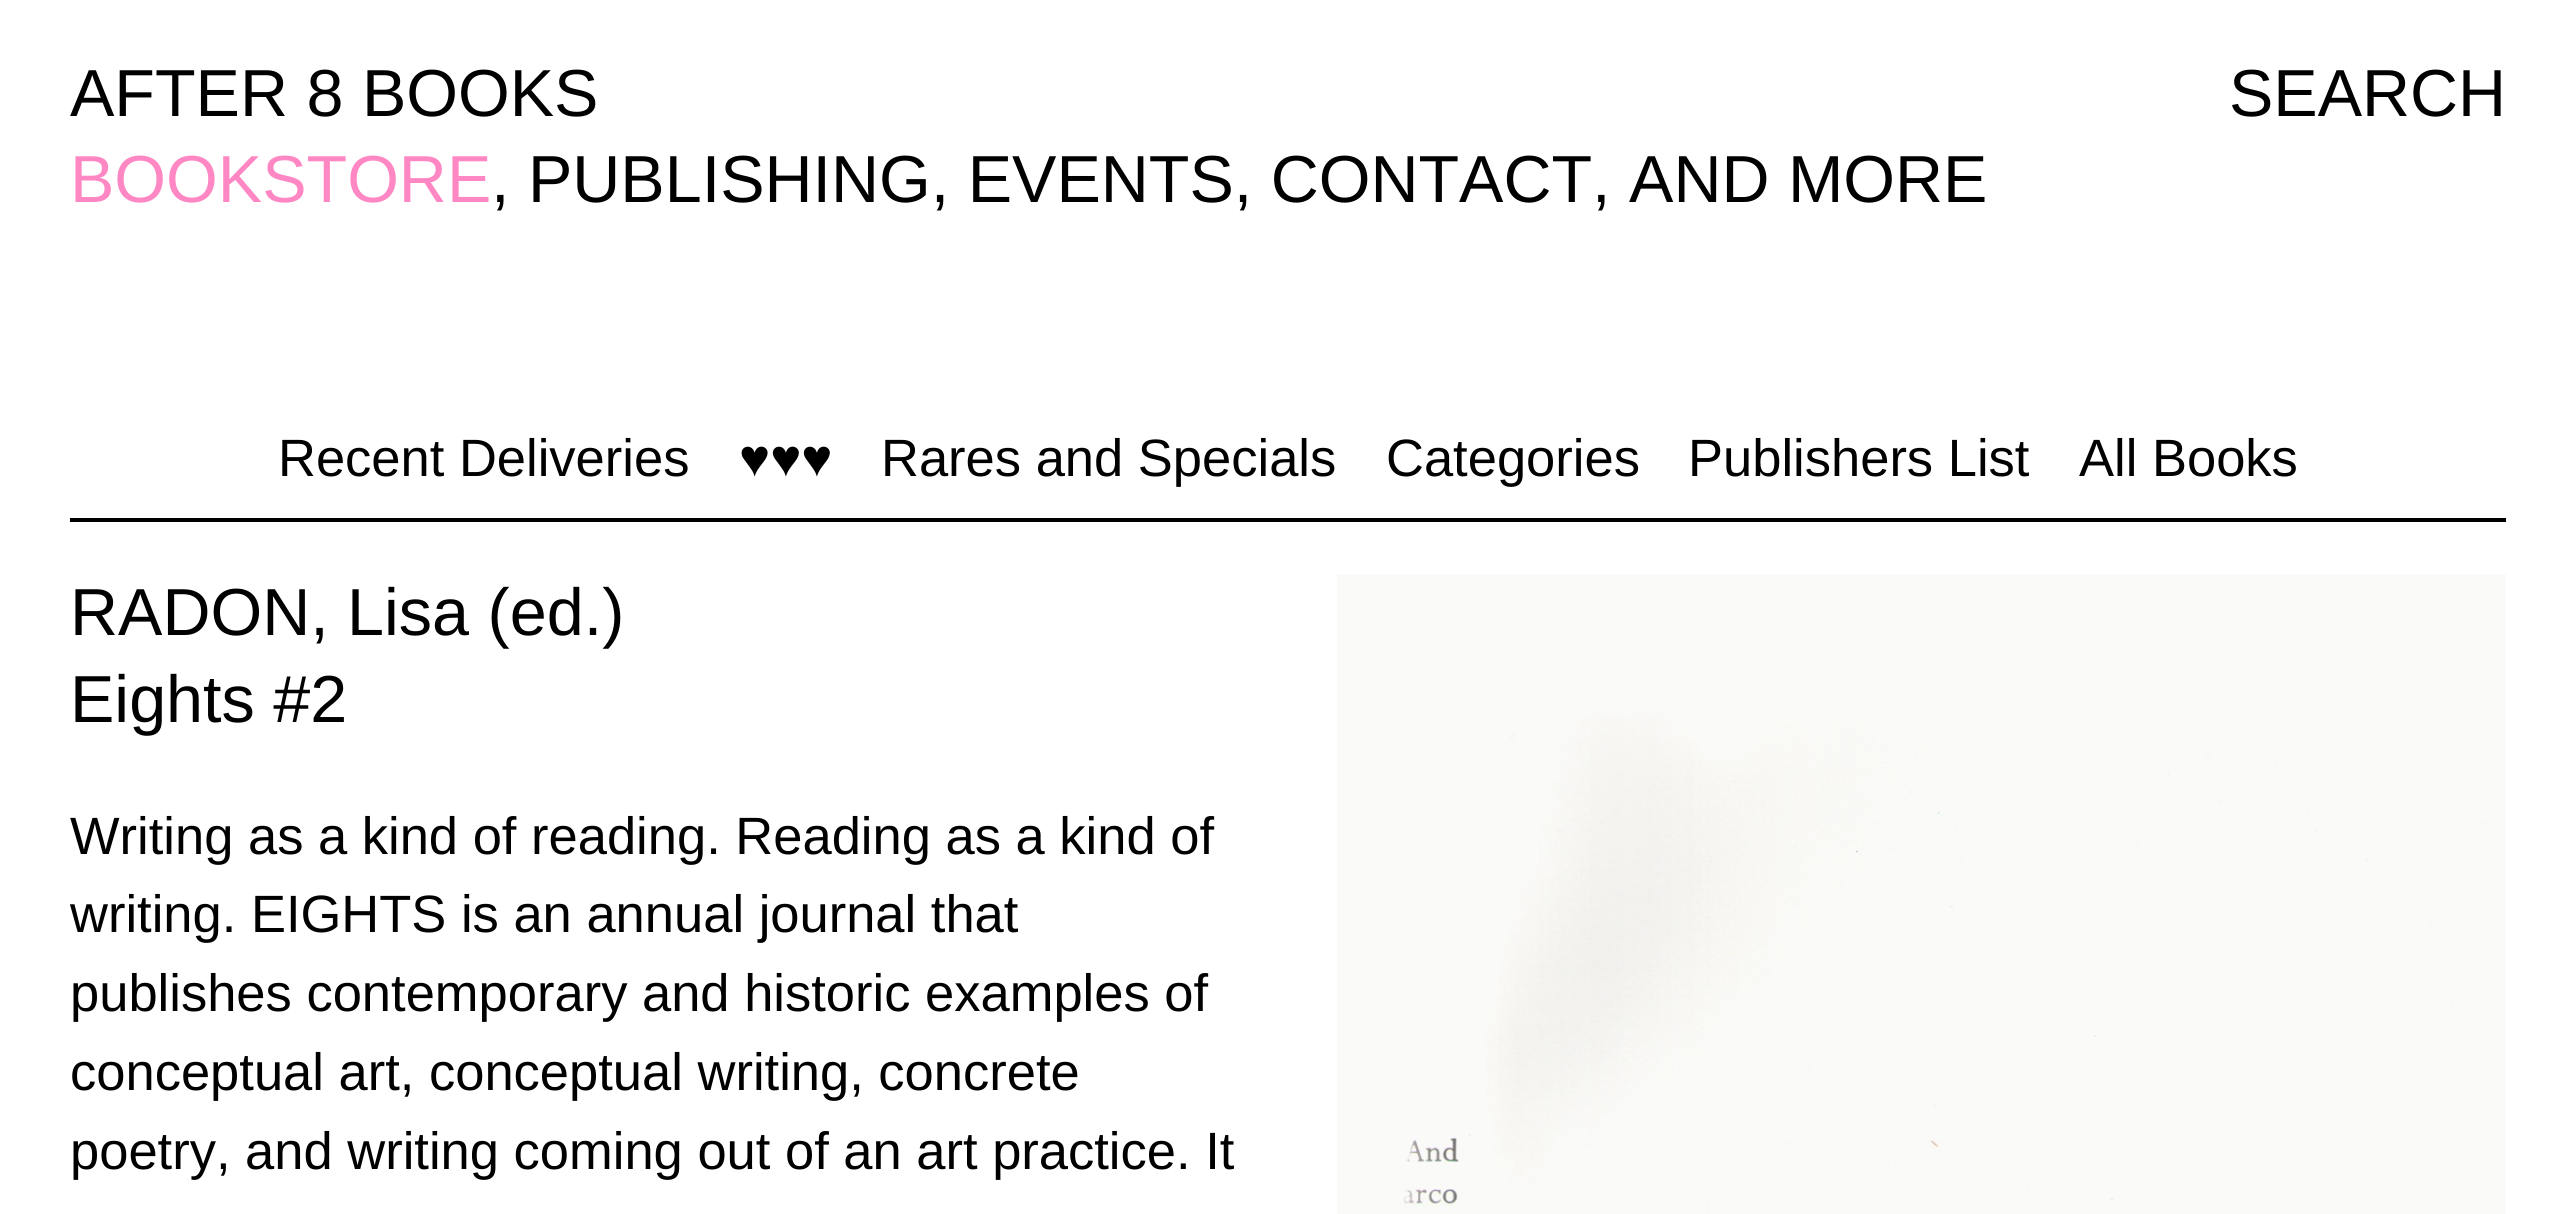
#include <cairo/cairo.h>
#include <math.h>
#include <stddef.h>

static cairo_t *cr;

static void use_color(int r, int g, int b) {
  cairo_set_source_rgb(cr, r / 255.0, g / 255.0, b / 255.0);
}

static void text(double x, double y, const char *s, const char *family, double size, int italic, int bold, int r, int g, int b) {
  cairo_select_font_face(cr, family, italic ? CAIRO_FONT_SLANT_ITALIC : CAIRO_FONT_SLANT_NORMAL,
    bold ? CAIRO_FONT_WEIGHT_BOLD : CAIRO_FONT_WEIGHT_NORMAL);
  cairo_set_font_size(cr, size);
  use_color(r, g, b);
  cairo_move_to(cr, x, y);
  cairo_show_text(cr, s);
}

static void box(double x, double y, double w, double h, int r, int g, int b) {
  use_color(r, g, b);
  cairo_rectangle(cr, x, y, w, h);
  cairo_fill(cr);
}

static void picture(const char *path, double x, double y, double w, double h) {
  cairo_surface_t *image = cairo_image_surface_create_from_png(path);
  cairo_save(cr);
  cairo_set_source_surface(cr, image, x, y);
  cairo_rectangle(cr, x, y, w, h);
  cairo_fill(cr);
  cairo_restore(cr);
  cairo_surface_destroy(image);
}

static void draw(void) {
  use_color(255, 255, 255);
  cairo_paint(cr);
  box(70, 518, 2436, 4, 0, 0, 0);
  picture("img_01.png", 1337, 574, 1169, 640);
  text(70, 116, "AFTER 8 BOOKS", "Liberation Sans", 66.5, 0, 0, 0, 0, 0);
  text(2229, 116, "SEARCH", "Liberation Sans", 66.5, 0, 0, 0, 0, 0);
  text(70, 202, "BOOKSTORE", "Liberation Sans", 66.5, 0, 0, 255, 135, 195);
  text(491, 202, ", PUBLISHING, EVENTS, CONTACT, AND MORE", "Liberation Sans", 66.5, 0, 0, 0, 0, 0);
  text(278, 476, "Recent Deliveries", "Liberation Sans", 52.5, 0, 0, 0, 0, 0);
  text(739, 476, "♥♥♥", "Liberation Sans", 52.5, 0, 0, 0, 0, 0);
  text(881, 476, "Rares and Specials", "Liberation Sans", 52.5, 0, 0, 0, 0, 0);
  text(1386, 476, "Categories", "Liberation Sans", 52.5, 0, 0, 0, 0, 0);
  text(1688, 476, "Publishers List", "Liberation Sans", 52.5, 0, 0, 0, 0, 0);
  text(2079, 476, "All Books", "Liberation Sans", 52.5, 0, 0, 0, 0, 0);
  text(70, 635, "RADON, Lisa (ed.)", "Liberation Sans", 66.5, 0, 0, 0, 0, 0);
  text(70, 722, "Eights #2", "Liberation Sans", 66.5, 0, 0, 0, 0, 0);
  text(70, 854, "Writing as a kind of reading. Reading as a kind of", "Liberation Sans", 52.5, 0, 0, 0, 0, 0);
  text(70, 932, "writing. EIGHTS is an annual journal that", "Liberation Sans", 52.5, 0, 0, 0, 0, 0);
  text(70, 1011, "publishes contemporary and historic examples of", "Liberation Sans", 52.5, 0, 0, 0, 0, 0);
  text(70, 1090, "conceptual art, conceptual writing, concrete", "Liberation Sans", 52.5, 0, 0, 0, 0, 0);
  text(70, 1169, "poetry, and writing coming out of an art practice. It", "Liberation Sans", 52.5, 0, 0, 0, 0, 0);
}

int main(void) {
  cairo_surface_t *surface = cairo_image_surface_create(CAIRO_FORMAT_RGB24, 2573, 1214);
  cr = cairo_create(surface);
  cairo_font_options_t *options = cairo_font_options_create();
  cairo_font_options_set_hint_metrics(options, CAIRO_HINT_METRICS_OFF);
  cairo_font_options_set_hint_style(options, CAIRO_HINT_STYLE_NONE);
  cairo_set_font_options(cr, options);
  cairo_set_miter_limit(cr, 4);
  draw();
  cairo_surface_write_to_png(surface, "out.png");
  cairo_font_options_destroy(options);
  cairo_destroy(cr);
  cairo_surface_destroy(surface);
  return 0;
}
